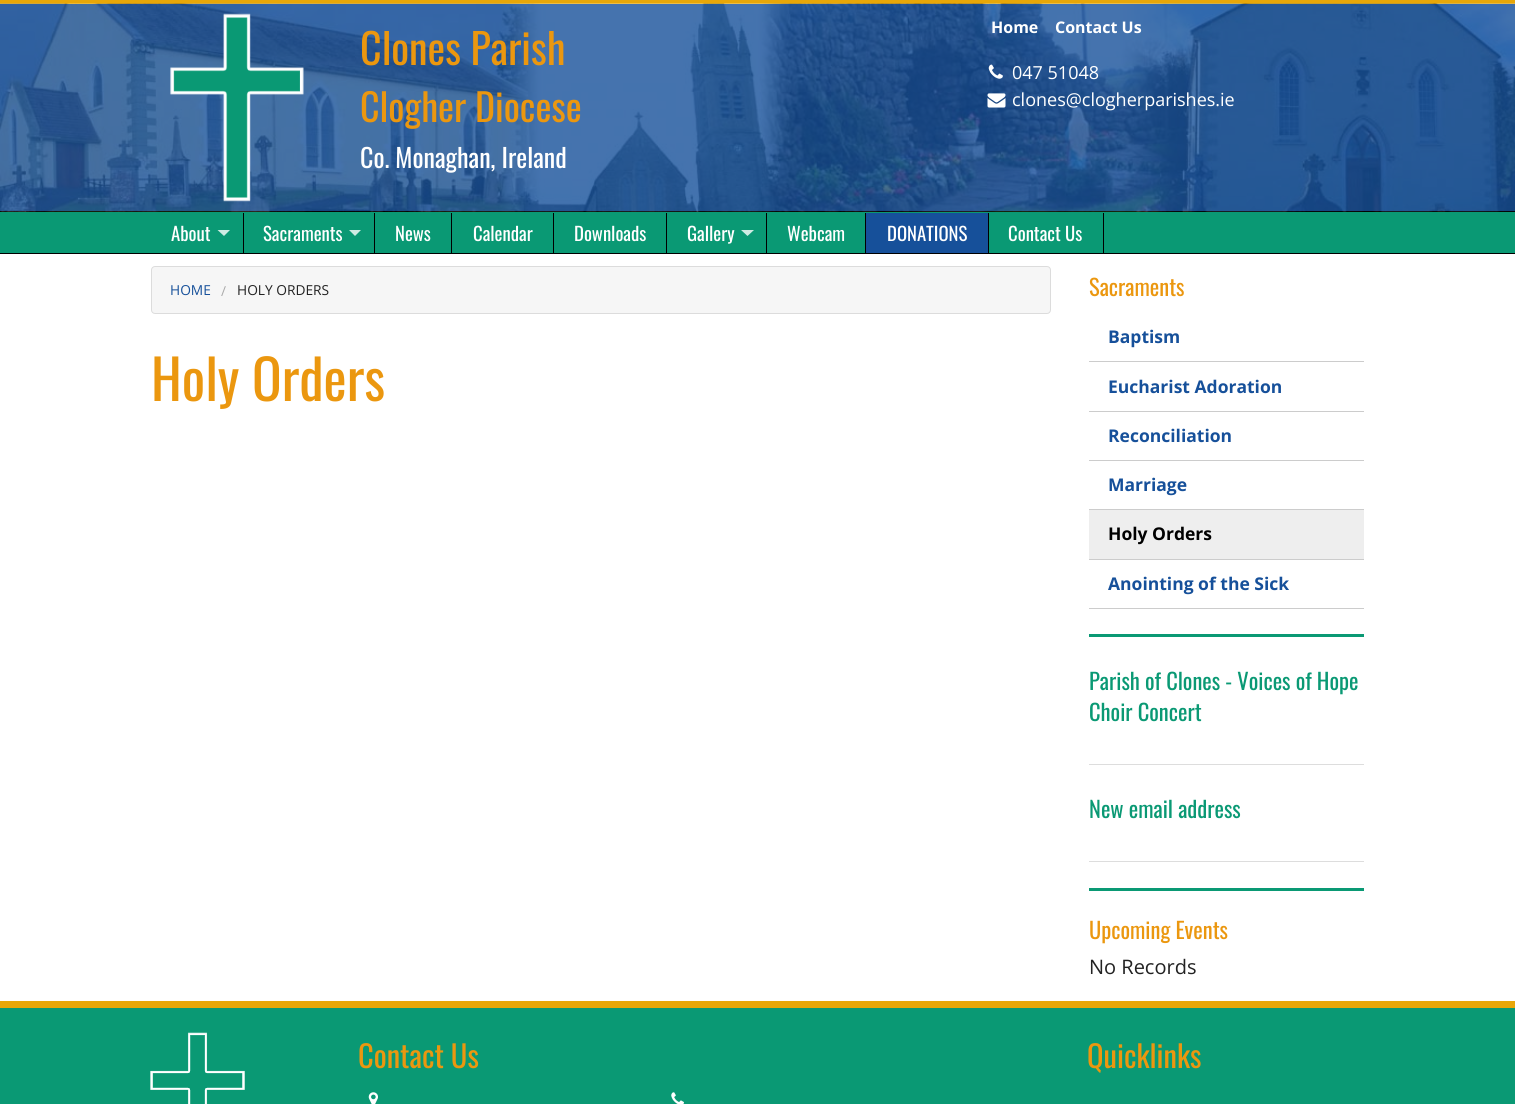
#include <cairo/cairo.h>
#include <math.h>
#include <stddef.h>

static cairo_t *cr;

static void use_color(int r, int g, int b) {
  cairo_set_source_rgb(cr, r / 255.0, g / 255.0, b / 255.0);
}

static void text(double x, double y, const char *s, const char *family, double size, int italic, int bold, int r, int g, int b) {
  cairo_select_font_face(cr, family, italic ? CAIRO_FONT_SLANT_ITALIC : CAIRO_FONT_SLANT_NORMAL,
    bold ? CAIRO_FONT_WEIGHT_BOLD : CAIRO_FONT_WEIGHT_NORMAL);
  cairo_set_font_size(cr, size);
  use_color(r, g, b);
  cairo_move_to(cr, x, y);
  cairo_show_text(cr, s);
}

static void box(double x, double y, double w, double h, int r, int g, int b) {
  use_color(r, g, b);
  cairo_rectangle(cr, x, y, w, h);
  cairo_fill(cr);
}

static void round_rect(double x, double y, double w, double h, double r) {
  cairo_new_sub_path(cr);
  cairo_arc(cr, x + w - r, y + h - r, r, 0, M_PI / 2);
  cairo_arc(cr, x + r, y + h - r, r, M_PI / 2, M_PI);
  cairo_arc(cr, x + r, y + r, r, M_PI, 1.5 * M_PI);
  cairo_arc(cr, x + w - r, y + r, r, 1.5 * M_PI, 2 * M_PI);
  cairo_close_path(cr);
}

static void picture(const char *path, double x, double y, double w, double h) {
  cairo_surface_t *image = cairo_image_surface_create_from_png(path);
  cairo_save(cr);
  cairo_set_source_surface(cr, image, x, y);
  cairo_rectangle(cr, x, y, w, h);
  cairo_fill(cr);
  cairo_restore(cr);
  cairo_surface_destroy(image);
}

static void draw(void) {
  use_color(255, 255, 255);
  cairo_paint(cr);
  box(0, 212, 1515, 41, 10, 153, 116);
  box(0, 0, 1515, 4, 232, 167, 8);
  box(0, 211, 1515, 1, 0, 0, 0);
  picture("img_01.png", 0, 3, 1515, 209);
  picture("img_02.png", 170, 13, 134, 189);
  picture("img_03.png", 988, 64, 15, 15);
  picture("img_04.png", 987, 93, 19, 15);
  box(0, 253, 1515, 1, 0, 0, 0);
  use_color(206, 235, 227);
  cairo_new_path(cr);
  cairo_move_to(cr, 217.5, 230);
  cairo_line_to(cr, 230, 230);
  cairo_line_to(cr, 224, 236);
  cairo_close_path(cr);
  cairo_fill(cr);
  box(243, 213, 1, 40, 0, 0, 0);
  use_color(206, 235, 227);
  cairo_new_path(cr);
  cairo_move_to(cr, 349, 230);
  cairo_line_to(cr, 361, 230);
  cairo_line_to(cr, 355, 236);
  cairo_close_path(cr);
  cairo_fill(cr);
  box(374, 213, 1, 40, 0, 0, 0);
  box(451, 213, 1, 40, 0, 0, 0);
  box(553, 213, 1, 40, 0, 0, 0);
  box(666, 213, 1, 40, 0, 0, 0);
  use_color(206, 235, 227);
  cairo_new_path(cr);
  cairo_move_to(cr, 741, 230);
  cairo_line_to(cr, 754, 230);
  cairo_line_to(cr, 747.5, 236);
  cairo_close_path(cr);
  cairo_fill(cr);
  box(766, 213, 1, 40, 0, 0, 0);
  box(865, 213, 1, 40, 0, 0, 0);
  box(866, 213, 122, 40, 22, 80, 154);
  box(988, 213, 1, 40, 0, 0, 0);
  box(1103, 213, 1, 40, 0, 0, 0);
  use_color(246, 246, 246);
  round_rect(151.5, 266.5, 899, 47, 3.5);
  cairo_fill_preserve(cr);
  use_color(220, 220, 220);
  cairo_set_line_width(cr, 1);
  cairo_stroke(cr);
  box(1089, 361, 275, 1, 204, 204, 204);
  box(1089, 411, 275, 1, 204, 204, 204);
  box(1089, 460, 275, 1, 204, 204, 204);
  box(1089, 509, 275, 1, 204, 204, 204);
  box(1089, 559, 275, 1, 204, 204, 204);
  box(1089, 510, 275, 49, 238, 238, 238);
  box(1089, 608, 275, 1, 204, 204, 204);
  box(1089, 634, 275, 3, 10, 153, 116);
  box(1089, 764, 275, 1, 221, 221, 221);
  box(1089, 861, 275, 1, 221, 221, 221);
  box(1089, 888, 275, 3, 10, 153, 116);
  box(0, 1008, 1515, 96, 10, 153, 116);
  box(0, 1001, 1515, 7, 232, 167, 8);
  picture("img_05.png", 150, 1032, 95, 72);
  picture("img_06.png", 368, 1092, 10, 12);
  picture("img_07.png", 671, 1092, 13, 12);
  text(360, 65, "Clones Parish", "Oswald", 42, 0, 0, 235, 151, 15);
  text(360, 122, "Clogher Diocese", "Oswald", 38, 0, 0, 235, 151, 15);
  text(360, 168, "Co. Monaghan, Ireland", "Oswald", 26, 0, 0, 255, 255, 255);
  text(991, 33, "Home", "Open Sans", 16, 0, 1, 255, 255, 255);
  text(1055, 33, "Contact Us", "Open Sans", 16, 0, 1, 255, 255, 255);
  text(1012, 79, "047 51048", "Open Sans", 18, 0, 0, 255, 255, 255);
  text(1012, 106, "clones@clogherparishes.ie", "Open Sans", 18, 0, 0, 255, 255, 255);
  text(171, 241, "About", "Oswald", 18.75, 0, 0, 255, 255, 255);
  text(263, 241, "Sacraments", "Oswald", 18.75, 0, 0, 255, 255, 255);
  text(395, 241, "News", "Oswald", 18.75, 0, 0, 255, 255, 255);
  text(473, 241, "Calendar", "Oswald", 18.75, 0, 0, 255, 255, 255);
  text(574, 241, "Downloads", "Oswald", 18.75, 0, 0, 255, 255, 255);
  text(687, 241, "Gallery", "Oswald", 18.75, 0, 0, 255, 255, 255);
  text(787, 241, "Webcam", "Oswald", 18.75, 0, 0, 255, 255, 255);
  text(887, 241, "DONATIONS", "Oswald", 18.75, 0, 0, 255, 255, 255);
  text(1008, 241, "Contact Us", "Oswald", 18.75, 0, 0, 255, 255, 255);
  text(170, 295, "HOME", "Open Sans", 13.75, 0, 0, 22, 80, 154);
  text(221, 296, "/", "Open Sans", 13.75, 0, 0, 170, 170, 170);
  text(237, 295, "HOLY ORDERS", "Open Sans", 13.75, 0, 0, 34, 34, 34);
  text(151, 401, "Holy Orders", "Oswald", 55, 0, 0, 235, 151, 15);
  text(1089, 296, "Sacraments", "Oswald", 22.5, 0, 0, 235, 151, 15);
  text(1108, 343, "Baptism", "Open Sans", 17.5, 0, 1, 22, 80, 154);
  text(1108, 393, "Eucharist Adoration", "Open Sans", 17.5, 0, 1, 22, 80, 154);
  text(1108, 442, "Reconciliation", "Open Sans", 17.5, 0, 1, 22, 80, 154);
  text(1108, 491, "Marriage", "Open Sans", 17.5, 0, 1, 22, 80, 154);
  text(1108, 540, "Holy Orders", "Open Sans", 17.5, 0, 1, 0, 0, 0);
  text(1108, 590, "Anointing of the Sick", "Open Sans", 17.5, 0, 1, 22, 80, 154);
  text(1089, 690, "Parish of Clones - Voices of Hope", "Oswald", 22.5, 0, 0, 10, 153, 116);
  text(1089, 721, "Choir Concert", "Oswald", 22.5, 0, 0, 10, 153, 116);
  text(1089, 818, "New email address", "Oswald", 22.5, 0, 0, 10, 153, 116);
  text(1089, 939, "Upcoming Events", "Oswald", 22.5, 0, 0, 235, 151, 15);
  text(1089, 974, "No Records", "Open Sans", 20, 0, 0, 34, 34, 34);
  text(358, 1068, "Contact Us", "Oswald", 30.5, 0, 0, 235, 151, 15);
  text(1087, 1068, "Quicklinks", "Oswald", 30.5, 0, 0, 235, 151, 15);
}

int main(void) {
  cairo_surface_t *surface = cairo_image_surface_create(CAIRO_FORMAT_RGB24, 1515, 1104);
  cr = cairo_create(surface);
  cairo_font_options_t *options = cairo_font_options_create();
  cairo_font_options_set_hint_metrics(options, CAIRO_HINT_METRICS_OFF);
  cairo_font_options_set_hint_style(options, CAIRO_HINT_STYLE_NONE);
  cairo_set_font_options(cr, options);
  cairo_set_miter_limit(cr, 4);
  draw();
  cairo_surface_write_to_png(surface, "out.png");
  cairo_font_options_destroy(options);
  cairo_destroy(cr);
  cairo_surface_destroy(surface);
  return 0;
}
